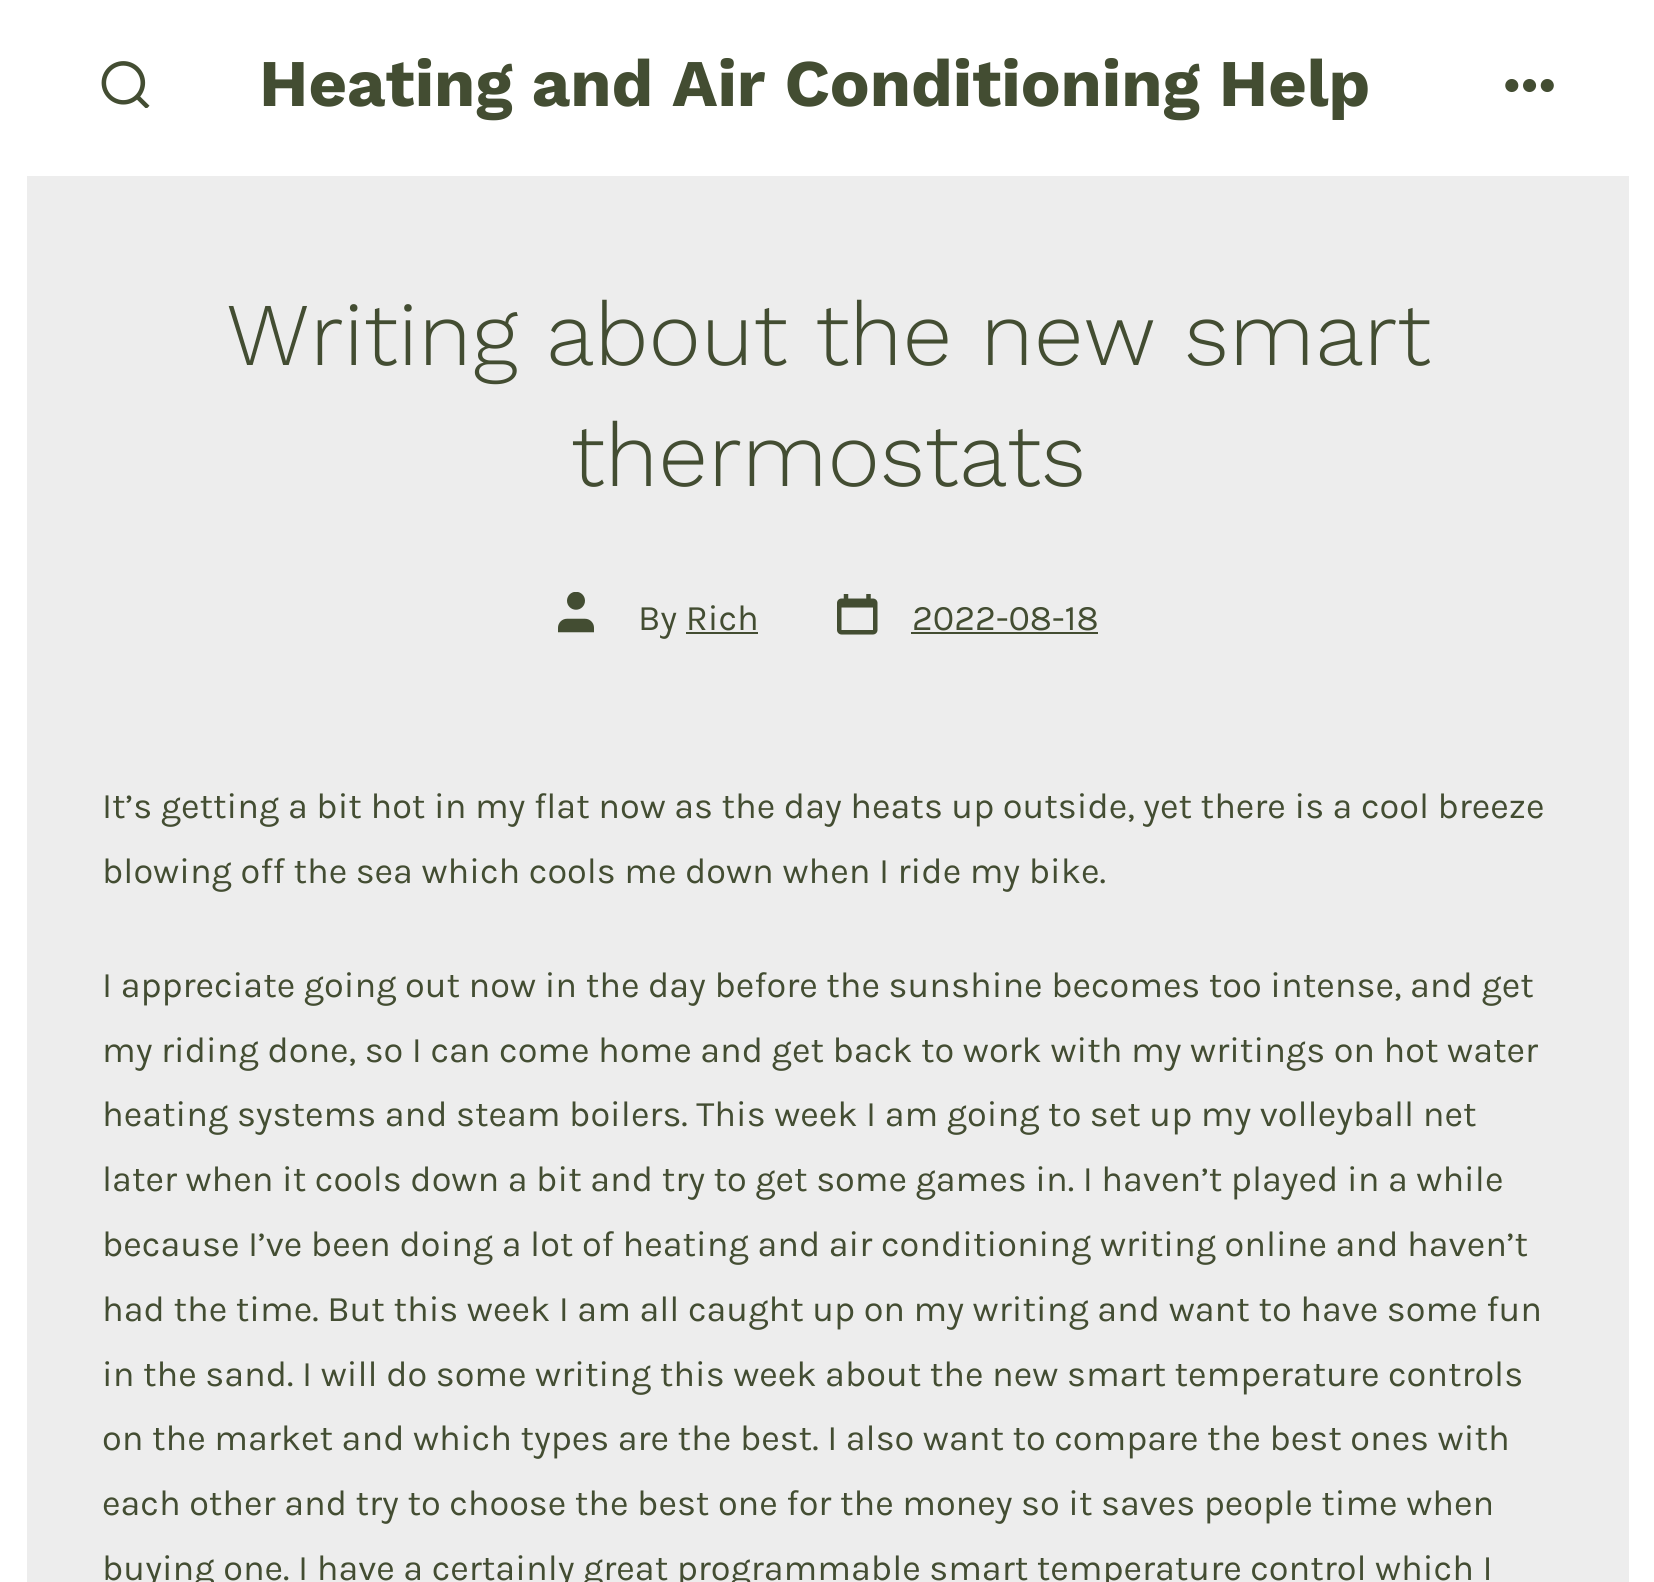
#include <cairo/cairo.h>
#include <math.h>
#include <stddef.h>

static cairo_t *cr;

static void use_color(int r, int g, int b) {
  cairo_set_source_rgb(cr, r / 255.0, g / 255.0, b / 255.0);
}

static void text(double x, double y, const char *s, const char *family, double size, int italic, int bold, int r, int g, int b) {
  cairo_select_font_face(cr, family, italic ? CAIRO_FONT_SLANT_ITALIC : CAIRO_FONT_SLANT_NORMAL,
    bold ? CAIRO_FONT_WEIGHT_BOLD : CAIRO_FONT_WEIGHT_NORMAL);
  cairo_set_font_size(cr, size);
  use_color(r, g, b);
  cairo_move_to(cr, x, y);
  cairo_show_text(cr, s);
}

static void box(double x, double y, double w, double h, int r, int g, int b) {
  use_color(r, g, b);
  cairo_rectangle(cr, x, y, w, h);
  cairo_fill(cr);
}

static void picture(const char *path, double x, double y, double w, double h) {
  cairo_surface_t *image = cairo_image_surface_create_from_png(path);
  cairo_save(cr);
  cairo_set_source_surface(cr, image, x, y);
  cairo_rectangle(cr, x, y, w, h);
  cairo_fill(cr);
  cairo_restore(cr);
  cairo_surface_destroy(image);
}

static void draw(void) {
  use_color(237, 237, 237);
  cairo_paint(cr);
  box(1629, 0, 25, 1582, 255, 255, 255);
  box(0, 0, 27, 1582, 255, 255, 255);
  box(27, 0, 1602, 176, 255, 255, 255);
  picture("img_01.png", 101, 61, 49, 47);
  picture("img_02.png", 1505, 79, 49, 14);
  picture("img_03.png", 558, 592, 36, 41);
  box(686, 632, 72, 2, 67, 77, 50);
  picture("img_04.png", 837, 594, 41, 41);
  box(911, 632, 187, 2, 67, 77, 50);
  text(259, 106, "Heating and Air Conditioning Help", "Work Sans", 66.6, 0, 1, 67, 77, 50);
  text(226, 365, "Writing about the new smart", "Work Sans Light", 89.4, 0, 0, 67, 77, 50);
  text(571, 486, "thermostats", "Work Sans Light", 89.4, 0, 0, 67, 77, 50);
  text(638, 630, "By Rich", "Karla", 36, 0, 0, 67, 77, 50);
  text(912, 630, "2022-08-18", "Karla", 36, 0, 0, 67, 77, 50);
  text(102, 818, "It’s getting a bit hot in my flat now as the day heats up outside, yet there is a cool breeze", "Karla", 36, 0, 0, 67, 77, 50);
  text(102, 883, "blowing off the sea which cools me down when I ride my bike.", "Karla", 36, 0, 0, 67, 77, 50);
  text(102, 997, "I appreciate going out now in the day before the sunshine becomes too intense, and get", "Karla", 36, 0, 0, 67, 77, 50);
  text(102, 1062, "my riding done, so I can come home and get back to work with my writings on hot water", "Karla", 36, 0, 0, 67, 77, 50);
  text(102, 1126, "heating systems and steam boilers. This week I am going to set up my volleyball net", "Karla", 36, 0, 0, 67, 77, 50);
  text(102, 1191, "later when it cools down a bit and try to get some games in. I haven’t played in a while", "Karla", 36, 0, 0, 67, 77, 50);
  text(102, 1256, "because I’ve been doing a lot of heating and air conditioning writing online and haven’t", "Karla", 36, 0, 0, 67, 77, 50);
  text(102, 1321, "had the time. But this week I am all caught up on my writing and want to have some fun", "Karla", 36, 0, 0, 67, 77, 50);
  text(102, 1386, "in the sand. I will do some writing this week about the new smart temperature controls", "Karla", 36, 0, 0, 67, 77, 50);
  text(102, 1450, "on the market and which types are the best. I also want to compare the best ones with", "Karla", 36, 0, 0, 67, 77, 50);
  text(102, 1515, "each other and try to choose the best one for the money so it saves people time when", "Karla", 36, 0, 0, 67, 77, 50);
  text(102, 1580, "buying one. I have a certainly great programmable smart temperature control which I", "Karla", 36, 0, 0, 67, 77, 50);
}

int main(void) {
  cairo_surface_t *surface = cairo_image_surface_create(CAIRO_FORMAT_RGB24, 1654, 1582);
  cr = cairo_create(surface);
  cairo_font_options_t *options = cairo_font_options_create();
  cairo_font_options_set_hint_metrics(options, CAIRO_HINT_METRICS_OFF);
  cairo_font_options_set_hint_style(options, CAIRO_HINT_STYLE_NONE);
  cairo_set_font_options(cr, options);
  cairo_set_miter_limit(cr, 4);
  draw();
  cairo_surface_write_to_png(surface, "out.png");
  cairo_font_options_destroy(options);
  cairo_destroy(cr);
  cairo_surface_destroy(surface);
  return 0;
}
